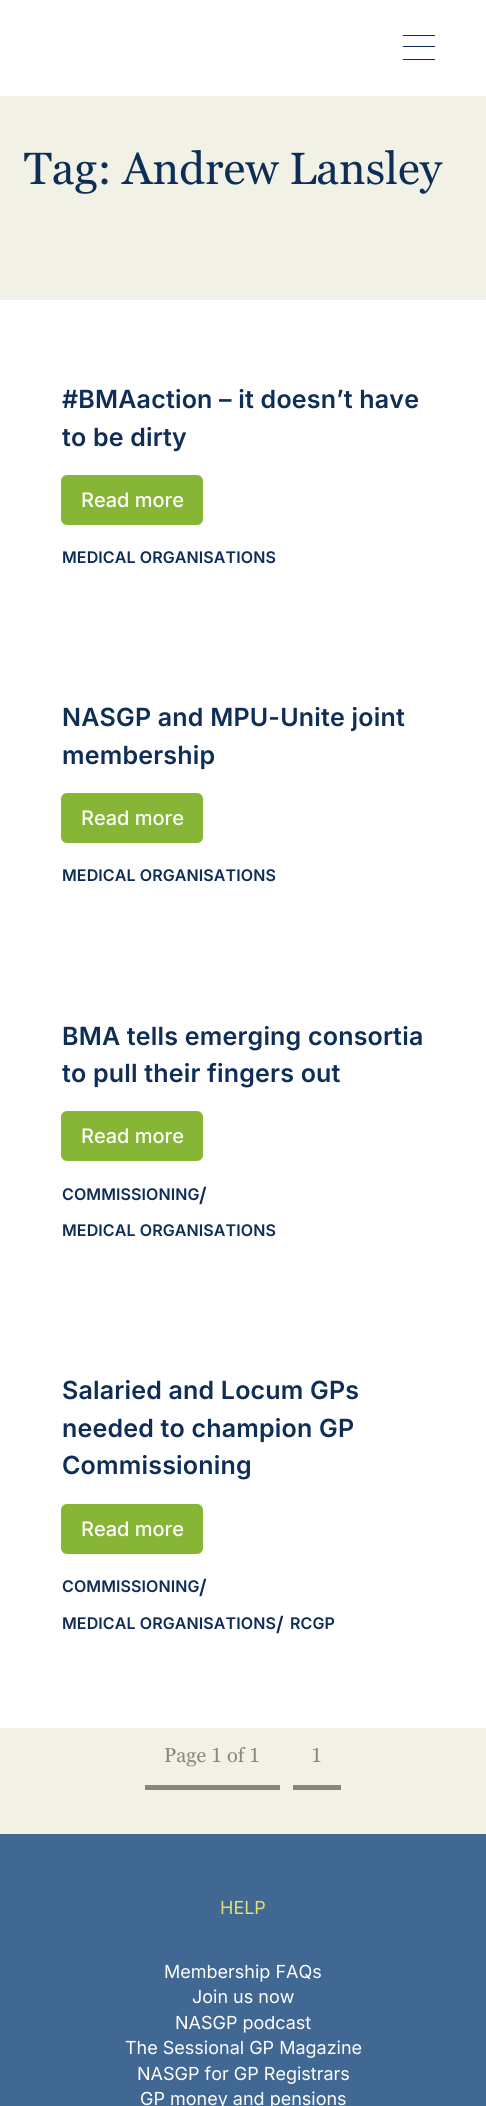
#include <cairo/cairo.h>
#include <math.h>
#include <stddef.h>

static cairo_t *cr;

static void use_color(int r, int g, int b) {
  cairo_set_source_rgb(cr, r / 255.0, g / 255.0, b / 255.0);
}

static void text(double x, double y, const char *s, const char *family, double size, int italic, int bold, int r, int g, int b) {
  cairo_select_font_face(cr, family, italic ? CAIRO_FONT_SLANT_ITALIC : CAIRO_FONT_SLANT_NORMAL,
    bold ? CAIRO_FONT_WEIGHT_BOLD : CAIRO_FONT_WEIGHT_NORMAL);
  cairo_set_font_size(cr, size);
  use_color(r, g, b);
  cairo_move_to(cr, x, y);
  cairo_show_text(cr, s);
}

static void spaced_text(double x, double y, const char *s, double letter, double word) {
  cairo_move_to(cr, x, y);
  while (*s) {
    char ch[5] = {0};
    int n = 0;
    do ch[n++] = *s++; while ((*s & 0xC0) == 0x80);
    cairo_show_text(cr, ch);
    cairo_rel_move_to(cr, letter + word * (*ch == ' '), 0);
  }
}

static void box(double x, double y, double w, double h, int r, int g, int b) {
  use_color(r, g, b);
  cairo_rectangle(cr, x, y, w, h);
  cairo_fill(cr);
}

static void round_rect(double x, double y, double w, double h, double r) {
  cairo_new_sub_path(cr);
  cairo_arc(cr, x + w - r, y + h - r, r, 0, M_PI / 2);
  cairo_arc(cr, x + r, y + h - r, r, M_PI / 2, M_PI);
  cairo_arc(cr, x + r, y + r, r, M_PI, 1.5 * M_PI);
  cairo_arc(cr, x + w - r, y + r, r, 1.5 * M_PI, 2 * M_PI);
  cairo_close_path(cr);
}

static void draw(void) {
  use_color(64, 104, 146);
  cairo_paint(cr);
  box(0, 0, 486, 96, 255, 255, 255);
  box(403, 35, 32, 1, 14, 45, 87);
  box(403, 46, 32, 1, 14, 45, 87);
  box(403, 59, 32, 1, 14, 45, 87);
  box(0, 96, 486, 1738, 242, 241, 230);
  box(0, 300, 486, 1428, 255, 255, 255);
  use_color(135, 182, 55);
  round_rect(61, 475, 142, 50, 6);
  cairo_fill(cr);
  round_rect(61, 793, 142, 50, 6);
  cairo_fill(cr);
  round_rect(61, 1111, 142, 50, 6);
  cairo_fill(cr);
  round_rect(61, 1504, 142, 50, 6);
  cairo_fill(cr);
  box(145, 1785, 135, 5, 135, 135, 122);
  box(293, 1785, 48, 5, 135, 135, 122);
  text(24, 184, "Tag: Andrew Lansley", "Georgia", 45, 0, 0, 14, 45, 87);
  cairo_select_font_face(cr, "Inter SemiBold", CAIRO_FONT_SLANT_NORMAL, CAIRO_FONT_WEIGHT_NORMAL);
  cairo_set_font_size(cr, 25);
  spaced_text(62, 408, "#BMAaction – it doesn’t have", 0.2, 0);
  spaced_text(62, 446, "to be dirty", 0.2, 0);
  text(81, 507, "Read more", "Inter Medium", 20, 0, 0, 255, 255, 255);
  cairo_select_font_face(cr, "Inter SemiBold", CAIRO_FONT_SLANT_NORMAL, CAIRO_FONT_WEIGHT_NORMAL);
  cairo_set_font_size(cr, 16);
  use_color(14, 45, 87);
  spaced_text(62, 563, "MEDICAL ORGANISATIONS", 0.1, 0);
  cairo_set_font_size(cr, 25);
  spaced_text(62, 726, "NASGP and MPU-Unite joint", 0.2, 0);
  spaced_text(62, 764, "membership", 0.2, 0);
  text(81, 825, "Read more", "Inter Medium", 20, 0, 0, 255, 255, 255);
  cairo_select_font_face(cr, "Inter SemiBold", CAIRO_FONT_SLANT_NORMAL, CAIRO_FONT_WEIGHT_NORMAL);
  cairo_set_font_size(cr, 16);
  use_color(14, 45, 87);
  spaced_text(62, 881, "MEDICAL ORGANISATIONS", 0.1, 0);
  cairo_set_font_size(cr, 25);
  spaced_text(62, 1045, "BMA tells emerging consortia", 0.2, 0);
  spaced_text(62, 1082, "to pull their fingers out", 0.2, 0);
  text(81, 1143, "Read more", "Inter Medium", 20, 0, 0, 255, 255, 255);
  cairo_select_font_face(cr, "Inter SemiBold", CAIRO_FONT_SLANT_NORMAL, CAIRO_FONT_WEIGHT_NORMAL);
  cairo_set_font_size(cr, 16);
  use_color(14, 45, 87);
  spaced_text(62, 1200, "COMMISSIONING", 0.1, 0);
  cairo_set_font_size(cr, 20);
  spaced_text(199, 1202, "/", 0.1, 0);
  cairo_set_font_size(cr, 16);
  spaced_text(62, 1236, "MEDICAL ORGANISATIONS", 0.1, 0);
  cairo_set_font_size(cr, 25);
  spaced_text(62, 1399, "Salaried and Locum GPs", 0.2, 0);
  spaced_text(62, 1437, "needed to champion GP", 0.2, 0);
  spaced_text(62, 1474, "Commissioning", 0.2, 0);
  text(81, 1536, "Read more", "Inter Medium", 20, 0, 0, 255, 255, 255);
  cairo_select_font_face(cr, "Inter SemiBold", CAIRO_FONT_SLANT_NORMAL, CAIRO_FONT_WEIGHT_NORMAL);
  cairo_set_font_size(cr, 16);
  use_color(14, 45, 87);
  spaced_text(62, 1592, "COMMISSIONING", 0.1, 0);
  cairo_set_font_size(cr, 20);
  spaced_text(199, 1594, "/", 0.1, 0);
  cairo_set_font_size(cr, 16);
  spaced_text(62, 1629, "MEDICAL ORGANISATIONS", 0.1, 0);
  cairo_set_font_size(cr, 20);
  spaced_text(276, 1631, "/", 0.1, 0);
  cairo_set_font_size(cr, 16);
  spaced_text(290, 1629, "RCGP", 0.1, 0);
  text(164, 1762, "Page 1 of 1", "Georgia", 20, 0, 0, 135, 135, 122);
  text(311, 1762, "1", "Georgia", 20, 0, 0, 135, 135, 122);
  text(220, 1914, "HELP", "Inter", 18, 0, 0, 222, 225, 111);
  text(164, 1978, "Membership FAQs", "Inter", 18, 0, 0, 255, 255, 255);
  text(192, 2003, "Join us now", "Inter", 18, 0, 0, 255, 255, 255);
  text(175, 2029, "NASGP podcast", "Inter", 18, 0, 0, 255, 255, 255);
  text(125, 2054, "The Sessional GP Magazine", "Inter", 18, 0, 0, 255, 255, 255);
  text(137, 2080, "NASGP for GP Registrars", "Inter", 18, 0, 0, 255, 255, 255);
  text(140, 2105, "GP money and pensions", "Inter", 18, 0, 0, 255, 255, 255);
}

int main(void) {
  cairo_surface_t *surface = cairo_image_surface_create(CAIRO_FORMAT_RGB24, 486, 2106);
  cr = cairo_create(surface);
  cairo_font_options_t *options = cairo_font_options_create();
  cairo_font_options_set_hint_metrics(options, CAIRO_HINT_METRICS_OFF);
  cairo_font_options_set_hint_style(options, CAIRO_HINT_STYLE_NONE);
  cairo_set_font_options(cr, options);
  cairo_set_miter_limit(cr, 4);
  draw();
  cairo_surface_write_to_png(surface, "out.png");
  cairo_font_options_destroy(options);
  cairo_destroy(cr);
  cairo_surface_destroy(surface);
  return 0;
}
